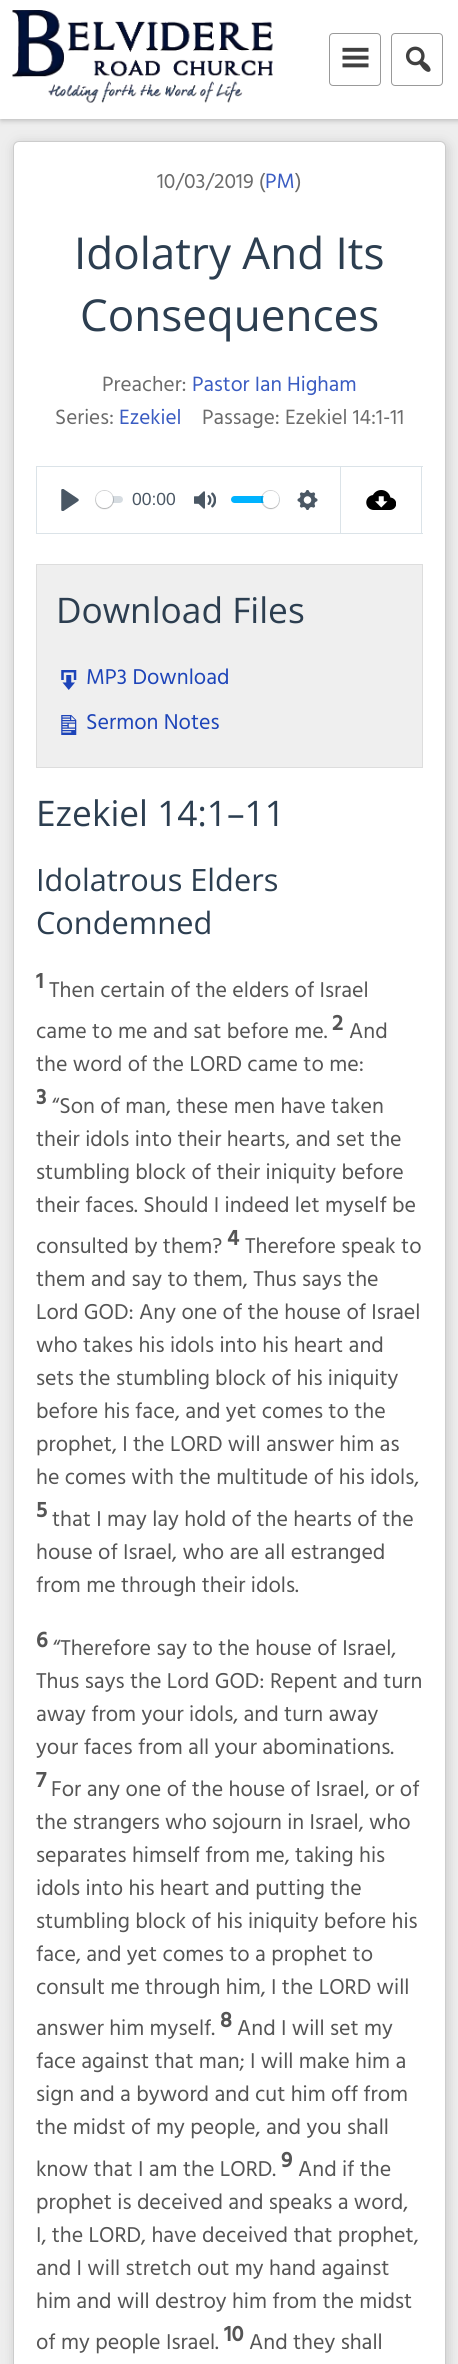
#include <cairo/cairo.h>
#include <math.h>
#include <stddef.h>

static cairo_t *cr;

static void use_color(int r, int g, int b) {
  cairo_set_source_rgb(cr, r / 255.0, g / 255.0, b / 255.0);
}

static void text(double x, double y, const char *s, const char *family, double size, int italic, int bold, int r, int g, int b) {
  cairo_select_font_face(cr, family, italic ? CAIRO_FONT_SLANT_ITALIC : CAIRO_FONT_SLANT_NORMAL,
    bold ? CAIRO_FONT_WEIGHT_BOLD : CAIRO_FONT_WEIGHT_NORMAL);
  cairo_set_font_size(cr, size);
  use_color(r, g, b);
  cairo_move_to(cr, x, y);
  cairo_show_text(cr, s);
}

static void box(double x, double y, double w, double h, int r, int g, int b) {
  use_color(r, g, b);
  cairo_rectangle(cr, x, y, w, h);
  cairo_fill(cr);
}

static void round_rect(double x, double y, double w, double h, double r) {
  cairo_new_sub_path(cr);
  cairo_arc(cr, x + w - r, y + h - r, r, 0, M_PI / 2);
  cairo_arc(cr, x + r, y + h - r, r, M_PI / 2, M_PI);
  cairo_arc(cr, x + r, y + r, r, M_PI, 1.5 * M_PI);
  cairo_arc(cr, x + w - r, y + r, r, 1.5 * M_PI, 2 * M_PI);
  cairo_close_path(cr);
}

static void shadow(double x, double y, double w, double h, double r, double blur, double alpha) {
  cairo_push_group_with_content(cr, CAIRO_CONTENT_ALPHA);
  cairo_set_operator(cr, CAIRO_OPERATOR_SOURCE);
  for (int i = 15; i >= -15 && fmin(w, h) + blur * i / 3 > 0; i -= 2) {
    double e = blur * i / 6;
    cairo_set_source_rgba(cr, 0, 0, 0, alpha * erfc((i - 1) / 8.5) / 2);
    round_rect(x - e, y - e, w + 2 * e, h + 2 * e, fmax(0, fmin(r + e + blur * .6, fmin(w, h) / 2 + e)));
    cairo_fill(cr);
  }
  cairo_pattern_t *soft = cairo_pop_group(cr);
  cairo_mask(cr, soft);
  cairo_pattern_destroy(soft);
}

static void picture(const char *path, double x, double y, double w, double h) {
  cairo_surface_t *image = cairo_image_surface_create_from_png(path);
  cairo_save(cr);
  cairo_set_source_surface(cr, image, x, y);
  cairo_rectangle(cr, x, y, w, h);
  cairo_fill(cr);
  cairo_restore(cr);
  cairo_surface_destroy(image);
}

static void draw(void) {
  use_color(238, 238, 238);
  cairo_paint(cr);
  use_color(179, 179, 179);
  shadow(1, 1, 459, 119, 0, 3, 1);
  box(0, 0, 458, 119, 255, 255, 255);
  picture("img_01.png", 12, 10, 261, 93);
  round_rect(329.5, 33.5, 51, 52, 3.5);
  use_color(153, 153, 153);
  cairo_set_line_width(cr, 1);
  cairo_stroke(cr);
  picture("img_02.png", 342, 47, 27, 21);
  round_rect(391.5, 33.5, 51, 52, 3.5);
  cairo_stroke(cr);
  picture("img_03.png", 405, 46, 26, 26);
  use_color(204, 204, 204);
  shadow(14, 143, 434, 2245, 6, 6, 1);
  use_color(255, 255, 255);
  round_rect(13.5, 141.5, 432, 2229, 5.5);
  cairo_fill_preserve(cr);
  use_color(204, 204, 204);
  cairo_stroke(cr);
  cairo_rectangle(cr, 36.5, 466.5, 304, 67);
  use_color(219, 227, 232);
  cairo_stroke(cr);
  picture("img_04.png", 61, 489, 18, 22);
  cairo_set_source_rgba(cr, 0.757, 0.788, 0.82, 0.66);
  round_rect(96, 496, 27, 7, 3.5);
  cairo_fill(cr);
  cairo_arc(cr, 104.5, 499.5, 9, 0, 2 * M_PI);
  cairo_set_source_rgba(cr, 0.137, 0.161, 0.184, 0.2);
  cairo_stroke(cr);
  use_color(0, 0, 0);
  shadow(96, 493, 17, 16, 8, 0.5, 0.15);
  use_color(255, 255, 255);
  cairo_arc(cr, 104.5, 499.5, 8.5, 0, 2 * M_PI);
  cairo_fill(cr);
  picture("img_05.png", 194, 491, 22, 18);
  use_color(0, 179, 255);
  round_rect(231, 496, 48, 7, 3.5);
  cairo_fill(cr);
  cairo_arc(cr, 270.5, 499.5, 9, 0, 2 * M_PI);
  cairo_set_source_rgba(cr, 0.137, 0.161, 0.184, 0.2);
  cairo_stroke(cr);
  use_color(0, 0, 0);
  shadow(263, 493, 16, 16, 8, 0.5, 0.15);
  use_color(255, 255, 255);
  round_rect(263, 491, 16, 17, 8);
  cairo_fill(cr);
  picture("img_06.png", 297, 490, 21, 20);
  box(341, 466, 82, 1, 219, 227, 232);
  box(421, 466, 1, 68, 219, 227, 232);
  box(341, 533, 82, 1, 219, 227, 232);
  picture("img_07.png", 366, 490, 30, 20);
  use_color(239, 239, 239);
  cairo_rectangle(cr, 36.5, 564.5, 386, 203);
  cairo_fill_preserve(cr);
  use_color(221, 221, 221);
  cairo_stroke(cr);
  picture("img_08.png", 61, 670, 16, 20);
  picture("img_09.png", 61, 715, 16, 20);
  text(157, 188, "10/03/2019 (", "Hind", 21.25, 0, 0, 107, 107, 107);
  text(265, 188, "PM", "Hind", 21.25, 0, 0, 58, 92, 194);
  text(295, 188, ")", "Hind", 21.25, 0, 0, 107, 107, 107);
  text(74, 269, "Idolatry And Its", "Open Sans", 44, 0, 0, 44, 62, 80);
  text(80, 331, "Consequences", "Open Sans", 44, 0, 0, 44, 62, 80);
  text(102, 391, "Preacher:", "Hind", 21.25, 0, 0, 107, 107, 107);
  text(192, 391, "Pastor Ian Higham", "Hind", 21.25, 0, 0, 58, 92, 194);
  text(55, 424, "Series:", "Hind", 21.25, 0, 0, 107, 107, 107);
  text(119, 424, "Ezekiel", "Hind", 21.25, 0, 0, 58, 92, 194);
  text(202, 424, "Passage: Ezekiel 14:1-11", "Hind", 21.25, 0, 0, 107, 107, 107);
  text(132, 505, "00:00", "Liberation Sans", 17.5, 0, 0, 74, 87, 100);
  text(56, 623, "Download Files", "Open Sans", 35.25, 0, 0, 44, 62, 80);
  text(86, 684, "MP3 Download", "Hind", 22, 0, 0, 29, 68, 185);
  text(86, 729, "Sermon Notes", "Hind", 22, 0, 0, 29, 68, 185);
  text(36, 826, "Ezekiel 14:1–11", "Open Sans", 35.25, 0, 0, 44, 62, 80);
  text(36, 891, "Idolatrous Elders", "Open Sans", 30.75, 0, 0, 44, 62, 80);
  text(36, 934, "Condemned", "Open Sans", 30.75, 0, 0, 44, 62, 80);
  text(36, 988, "1", "Hind", 22, 0, 1, 85, 85, 85);
  text(49, 997, "Then certain of the elders of Israel", "Hind", 22, 0, 0, 85, 85, 85);
  text(36, 1038, "came to me and sat before me.", "Hind", 22, 0, 0, 85, 85, 85);
  text(332, 1030, "2", "Hind", 22, 0, 1, 85, 85, 85);
  text(349, 1038, "And", "Hind", 22, 0, 0, 85, 85, 85);
  text(36, 1071, "the word of the LORD came to me:", "Hind", 22, 0, 0, 85, 85, 85);
  text(36, 1104, "3", "Hind", 22, 0, 1, 85, 85, 85);
  text(52, 1113, "“Son of man, these men have taken", "Hind", 22, 0, 0, 85, 85, 85);
  text(36, 1146, "their idols into their hearts, and set the", "Hind", 22, 0, 0, 85, 85, 85);
  text(36, 1179, "stumbling block of their iniquity before", "Hind", 22, 0, 0, 85, 85, 85);
  text(36, 1212, "their faces. Should I indeed let myself be", "Hind", 22, 0, 0, 85, 85, 85);
  text(36, 1253, "consulted by them?", "Hind", 22, 0, 0, 85, 85, 85);
  text(227, 1245, "4", "Hind", 22, 0, 1, 85, 85, 85);
  text(245, 1253, "Therefore speak to", "Hind", 22, 0, 0, 85, 85, 85);
  text(36, 1286, "them and say to them, Thus says the", "Hind", 22, 0, 0, 85, 85, 85);
  text(36, 1319, "Lord GOD: Any one of the house of Israel", "Hind", 22, 0, 0, 85, 85, 85);
  text(36, 1352, "who takes his idols into his heart and", "Hind", 22, 0, 0, 85, 85, 85);
  text(36, 1385, "sets the stumbling block of his iniquity", "Hind", 22, 0, 0, 85, 85, 85);
  text(36, 1418, "before his face, and yet comes to the", "Hind", 22, 0, 0, 85, 85, 85);
  text(36, 1451, "prophet, I the LORD will answer him as", "Hind", 22, 0, 0, 85, 85, 85);
  text(36, 1484, "he comes with the multitude of his idols,", "Hind", 22, 0, 0, 85, 85, 85);
  text(36, 1517, "5", "Hind", 22, 0, 1, 85, 85, 85);
  text(52, 1526, "that I may lay hold of the hearts of the", "Hind", 22, 0, 0, 85, 85, 85);
  text(36, 1559, "house of Israel, who are all estranged", "Hind", 22, 0, 0, 85, 85, 85);
  text(36, 1592, "from me through their idols.", "Hind", 22, 0, 0, 85, 85, 85);
  text(36, 1647, "6", "Hind", 22, 0, 1, 85, 85, 85);
  text(53, 1655, "“Therefore say to the house of Israel,", "Hind", 22, 0, 0, 85, 85, 85);
  text(36, 1688, "Thus says the Lord GOD: Repent and turn", "Hind", 22, 0, 0, 85, 85, 85);
  text(36, 1721, "away from your idols, and turn away", "Hind", 22, 0, 0, 85, 85, 85);
  text(36, 1754, "your faces from all your abominations.", "Hind", 22, 0, 0, 85, 85, 85);
  text(36, 1787, "7", "Hind", 22, 0, 1, 85, 85, 85);
  text(51, 1796, "For any one of the house of Israel, or of", "Hind", 22, 0, 0, 85, 85, 85);
  text(36, 1829, "the strangers who sojourn in Israel, who", "Hind", 22, 0, 0, 85, 85, 85);
  text(36, 1862, "separates himself from me, taking his", "Hind", 22, 0, 0, 85, 85, 85);
  text(36, 1895, "idols into his heart and putting the", "Hind", 22, 0, 0, 85, 85, 85);
  text(36, 1928, "stumbling block of his iniquity before his", "Hind", 22, 0, 0, 85, 85, 85);
  text(36, 1961, "face, and yet comes to a prophet to", "Hind", 22, 0, 0, 85, 85, 85);
  text(36, 1994, "consult me through him, I the LORD will", "Hind", 22, 0, 0, 85, 85, 85);
  text(36, 2035, "answer him myself.", "Hind", 22, 0, 0, 85, 85, 85);
  text(220, 2027, "8", "Hind", 22, 0, 1, 85, 85, 85);
  text(237, 2035, "And I will set my", "Hind", 22, 0, 0, 85, 85, 85);
  text(36, 2068, "face against that man; I will make him a", "Hind", 22, 0, 0, 85, 85, 85);
  text(36, 2101, "sign and a byword and cut him off from", "Hind", 22, 0, 0, 85, 85, 85);
  text(36, 2134, "the midst of my people, and you shall", "Hind", 22, 0, 0, 85, 85, 85);
  text(36, 2176, "know that I am the LORD.", "Hind", 22, 0, 0, 85, 85, 85);
  text(281, 2167, "9", "Hind", 22, 0, 1, 85, 85, 85);
  text(298, 2176, "And if the", "Hind", 22, 0, 0, 85, 85, 85);
  text(36, 2209, "prophet is deceived and speaks a word,", "Hind", 22, 0, 0, 85, 85, 85);
  text(36, 2242, "I, the LORD, have deceived that prophet,", "Hind", 22, 0, 0, 85, 85, 85);
  text(36, 2275, "and I will stretch out my hand against", "Hind", 22, 0, 0, 85, 85, 85);
  text(36, 2308, "him and will destroy him from the midst", "Hind", 22, 0, 0, 85, 85, 85);
  text(36, 2349, "of my people Israel.", "Hind", 22, 0, 0, 85, 85, 85);
  text(224, 2341, "10", "Hind", 22, 0, 1, 85, 85, 85);
  text(249, 2349, "And they shall", "Hind", 22, 0, 0, 85, 85, 85);
}

int main(void) {
  cairo_surface_t *surface = cairo_image_surface_create(CAIRO_FORMAT_RGB24, 458, 2364);
  cr = cairo_create(surface);
  cairo_font_options_t *options = cairo_font_options_create();
  cairo_font_options_set_hint_metrics(options, CAIRO_HINT_METRICS_OFF);
  cairo_font_options_set_hint_style(options, CAIRO_HINT_STYLE_NONE);
  cairo_set_font_options(cr, options);
  cairo_set_miter_limit(cr, 4);
  draw();
  cairo_surface_write_to_png(surface, "out.png");
  cairo_font_options_destroy(options);
  cairo_destroy(cr);
  cairo_surface_destroy(surface);
  return 0;
}
